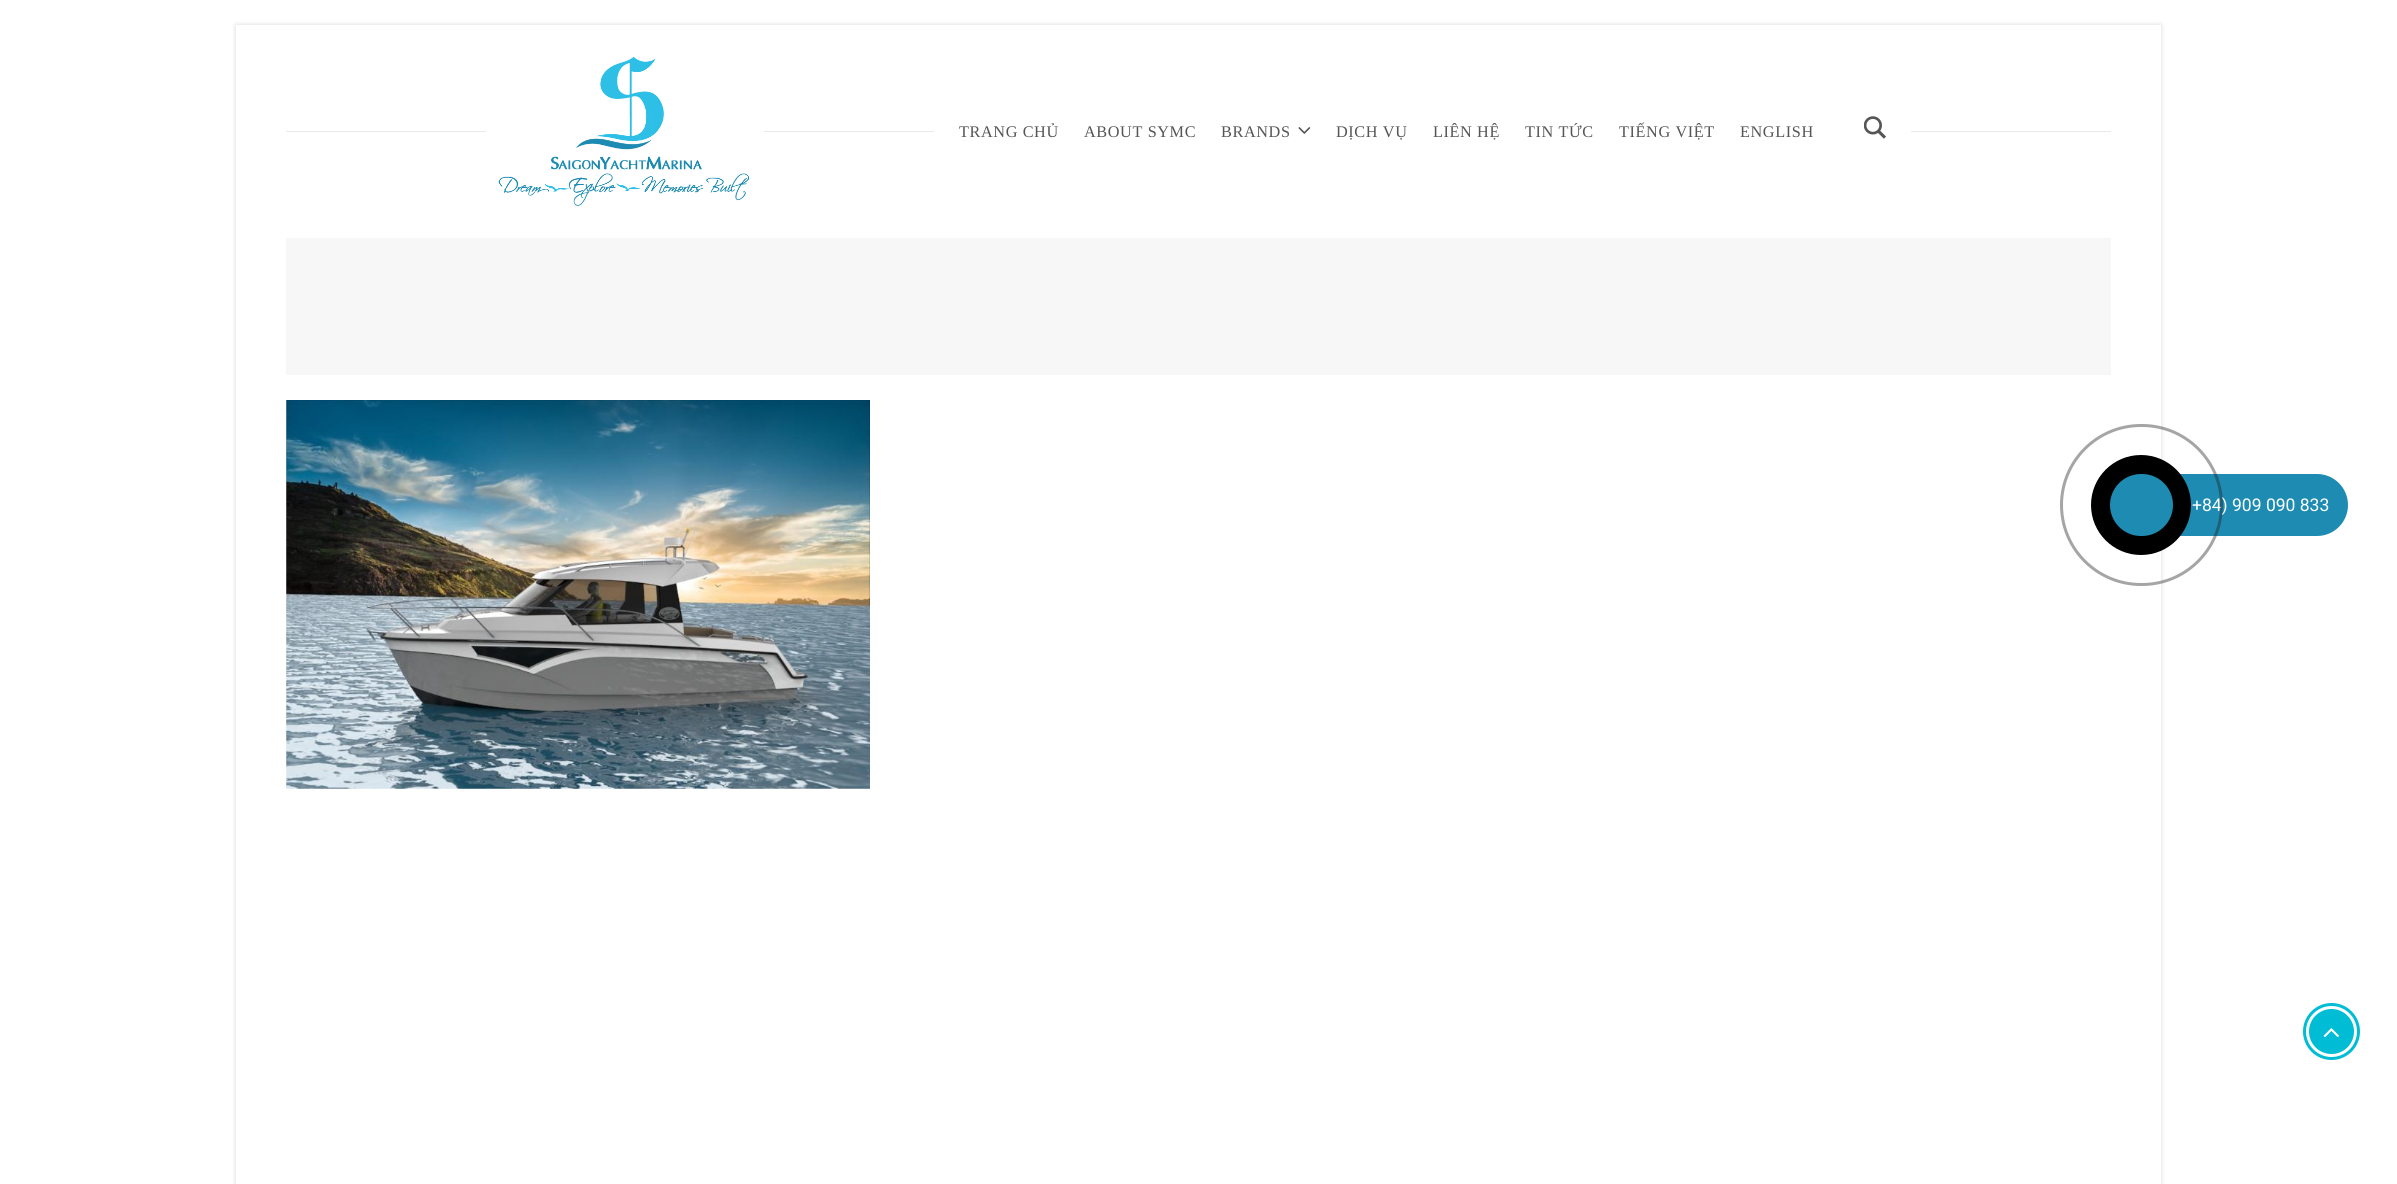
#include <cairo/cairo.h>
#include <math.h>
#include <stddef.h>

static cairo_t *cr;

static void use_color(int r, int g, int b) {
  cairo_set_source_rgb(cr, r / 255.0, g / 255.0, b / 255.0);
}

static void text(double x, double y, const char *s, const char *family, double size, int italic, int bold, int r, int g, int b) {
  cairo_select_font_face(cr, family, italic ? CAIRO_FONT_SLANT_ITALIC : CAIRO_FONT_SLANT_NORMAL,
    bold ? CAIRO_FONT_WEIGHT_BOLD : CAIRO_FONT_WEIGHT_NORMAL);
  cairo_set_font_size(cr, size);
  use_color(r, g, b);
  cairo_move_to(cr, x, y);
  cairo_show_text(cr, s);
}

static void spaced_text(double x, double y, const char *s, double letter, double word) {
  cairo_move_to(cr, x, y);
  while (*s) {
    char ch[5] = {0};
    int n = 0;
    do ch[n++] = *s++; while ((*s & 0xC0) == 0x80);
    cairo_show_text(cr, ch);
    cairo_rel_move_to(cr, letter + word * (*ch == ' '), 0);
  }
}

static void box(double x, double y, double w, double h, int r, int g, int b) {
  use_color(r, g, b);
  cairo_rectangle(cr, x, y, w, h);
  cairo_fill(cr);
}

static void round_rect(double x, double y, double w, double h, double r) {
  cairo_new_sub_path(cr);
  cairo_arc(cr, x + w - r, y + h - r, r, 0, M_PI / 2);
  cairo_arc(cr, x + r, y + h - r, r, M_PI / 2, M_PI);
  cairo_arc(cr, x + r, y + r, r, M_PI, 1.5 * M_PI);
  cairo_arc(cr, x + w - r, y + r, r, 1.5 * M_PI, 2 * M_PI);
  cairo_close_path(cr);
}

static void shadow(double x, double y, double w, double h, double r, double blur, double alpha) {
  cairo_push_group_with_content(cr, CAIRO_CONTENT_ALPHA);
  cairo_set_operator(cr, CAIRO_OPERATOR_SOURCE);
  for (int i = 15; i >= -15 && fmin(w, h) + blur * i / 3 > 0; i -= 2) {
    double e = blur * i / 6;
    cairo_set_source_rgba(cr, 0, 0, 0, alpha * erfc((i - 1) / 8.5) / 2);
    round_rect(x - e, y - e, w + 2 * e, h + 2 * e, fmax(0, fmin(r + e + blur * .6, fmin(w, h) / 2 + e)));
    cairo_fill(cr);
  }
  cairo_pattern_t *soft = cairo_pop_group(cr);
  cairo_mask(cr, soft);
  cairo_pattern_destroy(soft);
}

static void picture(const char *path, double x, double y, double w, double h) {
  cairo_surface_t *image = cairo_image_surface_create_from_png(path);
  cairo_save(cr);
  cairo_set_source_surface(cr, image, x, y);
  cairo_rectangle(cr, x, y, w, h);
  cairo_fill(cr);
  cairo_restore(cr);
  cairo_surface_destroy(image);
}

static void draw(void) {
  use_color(255, 255, 255);
  cairo_paint(cr);
  use_color(0, 0, 0);
  shadow(236, 25, 1925, 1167, 0, 2.5, 0.15);
  box(236, 25, 1925, 1159, 255, 255, 255);
  box(286, 131, 1825, 1, 233, 233, 233);
  box(486, 131, 278, 1, 255, 255, 255);
  picture("img_01.png", 498, 56, 251, 150);
  box(934, 131, 977, 1, 255, 255, 255);
  picture("img_02.png", 1864, 116, 22, 23);
  picture("img_03.png", 1298, 127, 13, 7);
  box(286, 238, 1825, 137, 247, 247, 247);
  picture("img_04.png", 286, 400, 584, 389);
  use_color(30, 140, 178);
  round_rect(2110, 474, 238, 62, 31);
  cairo_fill(cr);
  cairo_arc(cr, 2331.5, 1031.5, 27, 0, 2 * M_PI);
  use_color(0, 188, 212);
  cairo_set_line_width(cr, 3);
  cairo_stroke(cr);
  cairo_arc(cr, 2331.5, 1031.5, 22.5, 0, 2 * M_PI);
  cairo_fill(cr);
  picture("img_05.png", 2323, 1028, 16, 10);
  cairo_select_font_face(cr, "Liberation Serif", CAIRO_FONT_SLANT_NORMAL, CAIRO_FONT_WEIGHT_NORMAL);
  cairo_set_font_size(cr, 16.25);
  use_color(85, 85, 85);
  spaced_text(959, 137, "TRANG CHỦ", 0.6, 0);
  spaced_text(1084, 137, "ABOUT SYMC", 0.6, 0);
  spaced_text(1221, 137, "BRANDS", 0.6, 0);
  spaced_text(1336, 137, "DỊCH VỤ", 0.6, 0);
  spaced_text(1433, 137, "LIÊN HỆ", 0.6, 0);
  spaced_text(1525, 137, "TIN TỨC", 0.6, 0);
  spaced_text(1619, 137, "TIẾNG VIỆT", 0.6, 0);
  spaced_text(1740, 137, "ENGLISH", 0.6, 0);
  text(2192, 511, "+84) 909 090 833", "Roboto", 17.5, 0, 0, 255, 255, 255);
  round_rect(2061.5, 425.5, 160, 159, 79.5);
  cairo_set_source_rgba(cr, 0.118, 0.118, 0.118, 0.4);
  cairo_stroke(cr);
  use_color(0, 0, 0);
  cairo_arc(cr, 2141, 505, 50, 0, 2 * M_PI);
  cairo_fill(cr);
  use_color(30, 140, 178);
  round_rect(2110, 474, 63, 62, 31);
  cairo_fill(cr);
}

int main(void) {
  cairo_surface_t *surface = cairo_image_surface_create(CAIRO_FORMAT_RGB24, 2397, 1184);
  cr = cairo_create(surface);
  cairo_font_options_t *options = cairo_font_options_create();
  cairo_font_options_set_hint_metrics(options, CAIRO_HINT_METRICS_OFF);
  cairo_font_options_set_hint_style(options, CAIRO_HINT_STYLE_NONE);
  cairo_set_font_options(cr, options);
  cairo_set_miter_limit(cr, 4);
  draw();
  cairo_surface_write_to_png(surface, "out.png");
  cairo_font_options_destroy(options);
  cairo_destroy(cr);
  cairo_surface_destroy(surface);
  return 0;
}
